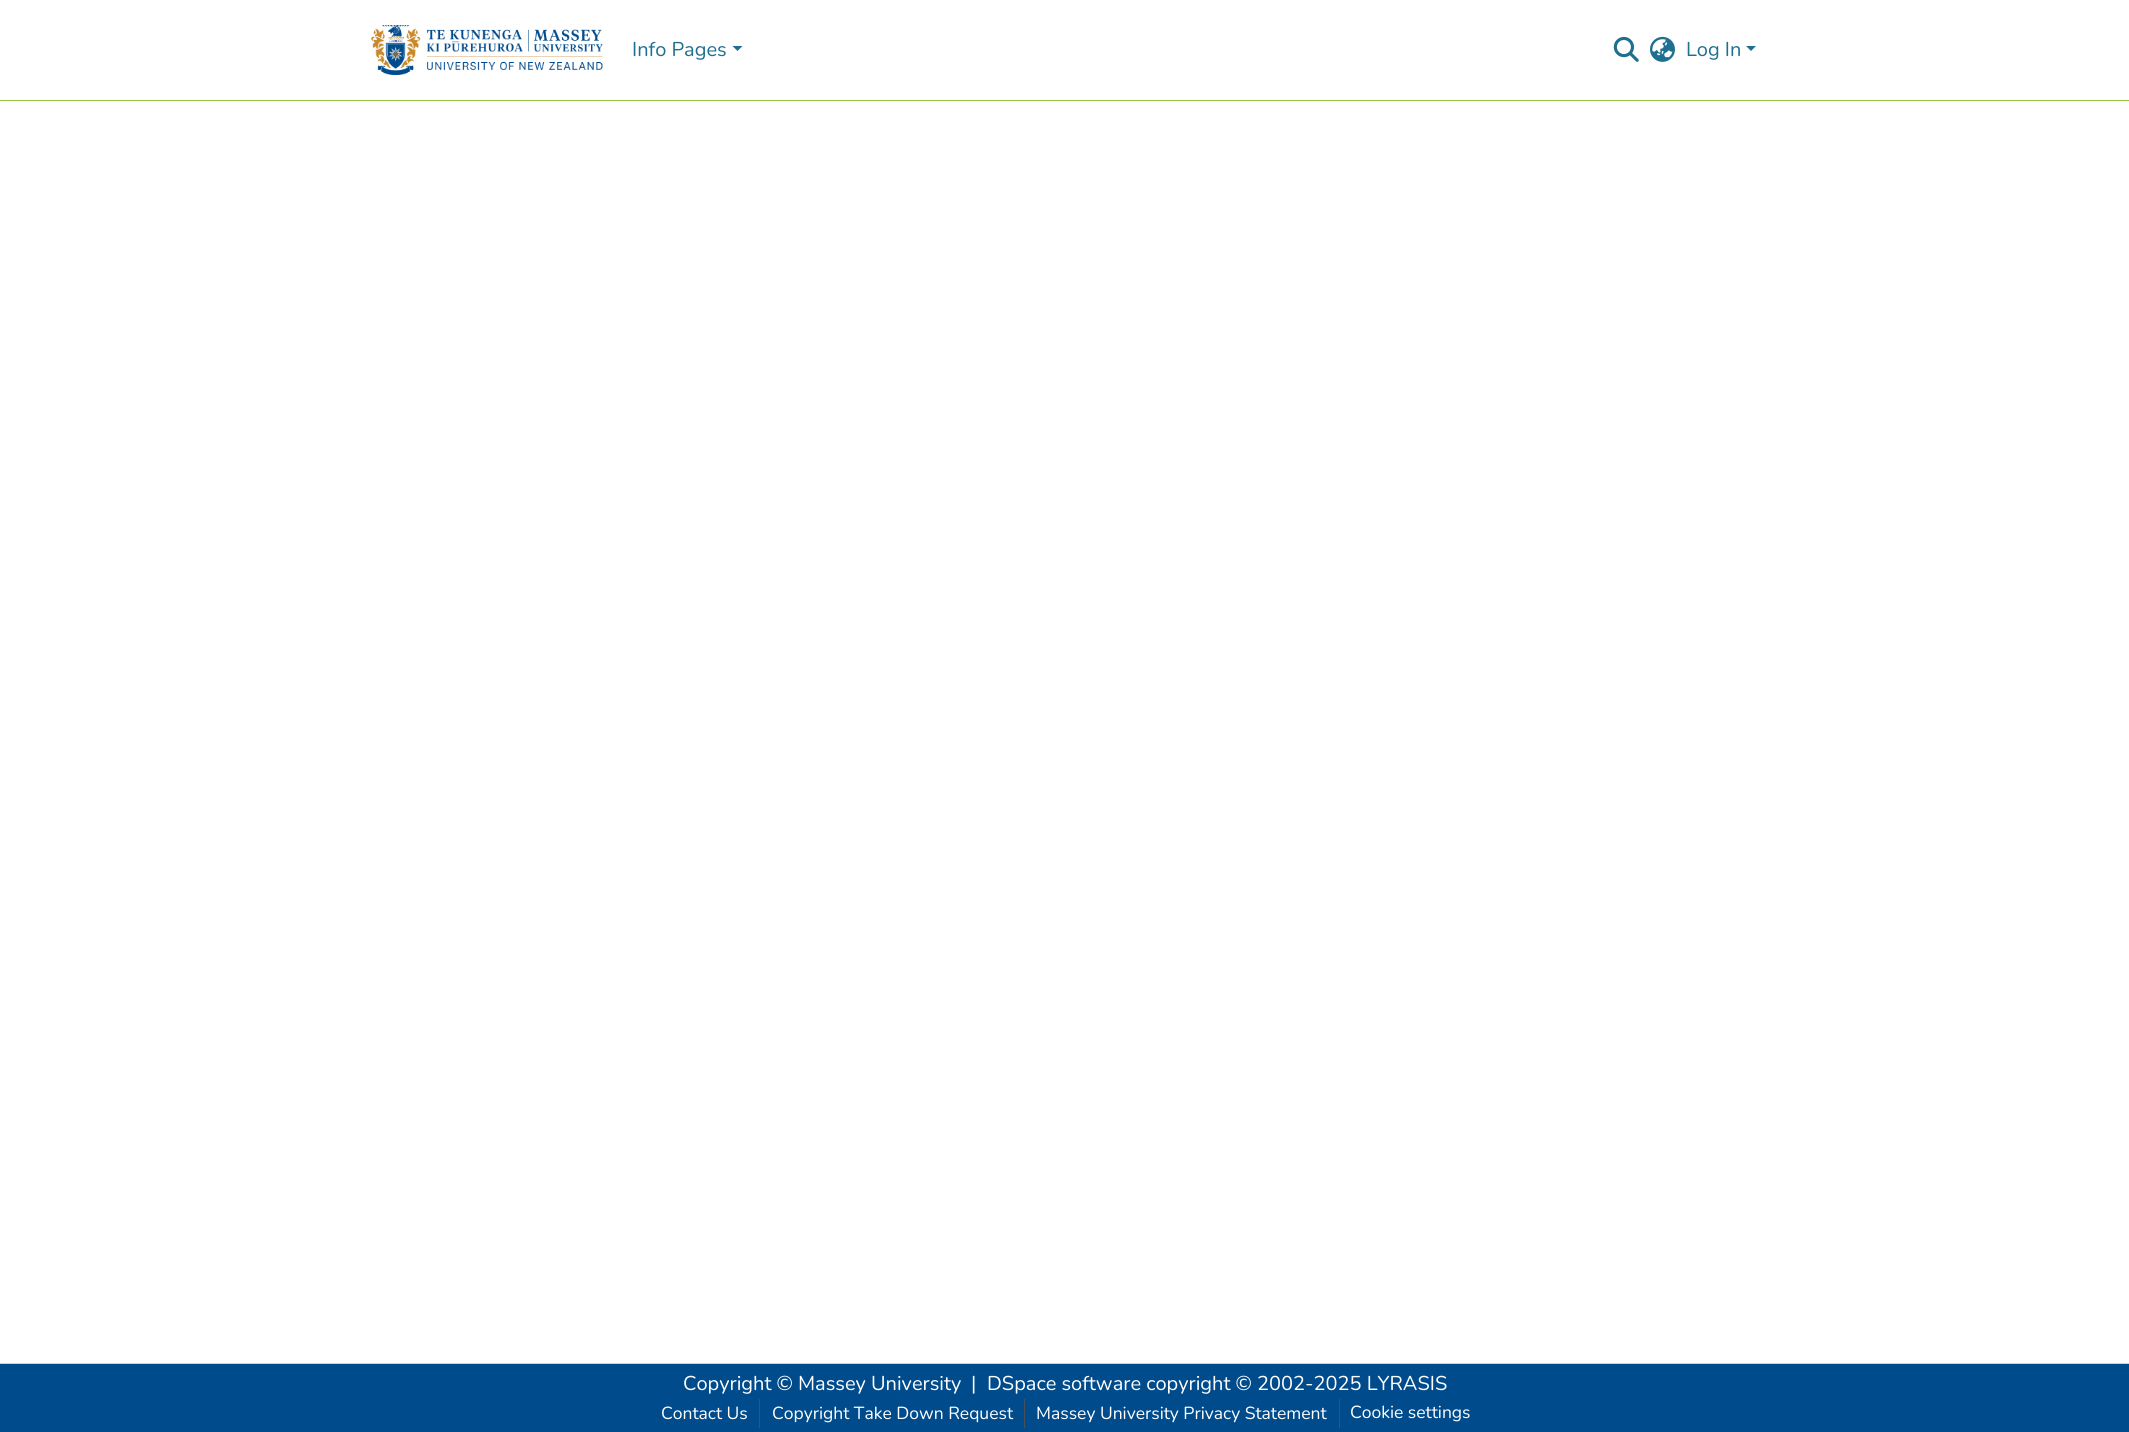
#include <cairo/cairo.h>
#include <math.h>
#include <stddef.h>

static cairo_t *cr;

static void use_color(int r, int g, int b) {
  cairo_set_source_rgb(cr, r / 255.0, g / 255.0, b / 255.0);
}

static void text(double x, double y, const char *s, const char *family, double size, int italic, int bold, int r, int g, int b) {
  cairo_select_font_face(cr, family, italic ? CAIRO_FONT_SLANT_ITALIC : CAIRO_FONT_SLANT_NORMAL,
    bold ? CAIRO_FONT_WEIGHT_BOLD : CAIRO_FONT_WEIGHT_NORMAL);
  cairo_set_font_size(cr, size);
  use_color(r, g, b);
  cairo_move_to(cr, x, y);
  cairo_show_text(cr, s);
}

static void box(double x, double y, double w, double h, int r, int g, int b) {
  use_color(r, g, b);
  cairo_rectangle(cr, x, y, w, h);
  cairo_fill(cr);
}

static void picture(const char *path, double x, double y, double w, double h) {
  cairo_surface_t *image = cairo_image_surface_create_from_png(path);
  cairo_save(cr);
  cairo_set_source_surface(cr, image, x, y);
  cairo_rectangle(cr, x, y, w, h);
  cairo_fill(cr);
  cairo_restore(cr);
  cairo_surface_destroy(image);
}

static void draw(void) {
  use_color(255, 255, 255);
  cairo_paint(cr);
  box(0, 100, 2129, 1, 146, 198, 66);
  picture("img_01.png", 371, 25, 232, 50);
  use_color(30, 111, 144);
  cairo_new_path(cr);
  cairo_move_to(cr, 732.5, 46);
  cairo_line_to(cr, 742.5, 46);
  cairo_line_to(cr, 737.5, 51);
  cairo_close_path(cr);
  cairo_fill(cr);
  picture("img_02.png", 1613, 36, 26, 26);
  picture("img_03.png", 1650, 36, 25, 26);
  cairo_new_path(cr);
  cairo_move_to(cr, 1746, 46);
  cairo_line_to(cr, 1756, 46);
  cairo_line_to(cr, 1751, 51);
  cairo_close_path(cr);
  cairo_fill(cr);
  box(0, 1364, 2129, 68, 0, 75, 140);
  box(0, 1363, 2129, 1, 206, 212, 218);
  box(759, 1399, 1, 29, 73, 80, 87);
  box(1024, 1399, 1, 29, 73, 80, 87);
  box(1339, 1399, 1, 29, 73, 80, 87);
  text(632, 56, "Info Pages", "Nunito", 20, 0, 0, 30, 111, 144);
  text(1686, 56, "Log In", "Nunito", 20, 0, 0, 30, 111, 144);
  text(683, 1390, "Copyright © Massey University", "Nunito", 20, 0, 0, 255, 255, 255);
  text(971, 1390, "|", "Nunito", 20, 0, 0, 255, 255, 255);
  text(987, 1390, "DSpace software copyright © 2002-2025 LYRASIS", "Nunito", 20, 0, 0, 255, 255, 255);
  text(661, 1419, "Contact Us", "Nunito", 17.5, 0, 0, 255, 255, 255);
  text(772, 1419, "Copyright Take Down Request", "Nunito", 17.5, 0, 0, 255, 255, 255);
  text(1036, 1419, "Massey University Privacy Statement", "Nunito", 17.5, 0, 0, 255, 255, 255);
  text(1350, 1418, "Cookie settings", "Nunito", 17.5, 0, 0, 255, 255, 255);
}

int main(void) {
  cairo_surface_t *surface = cairo_image_surface_create(CAIRO_FORMAT_RGB24, 2129, 1432);
  cr = cairo_create(surface);
  cairo_font_options_t *options = cairo_font_options_create();
  cairo_font_options_set_hint_metrics(options, CAIRO_HINT_METRICS_OFF);
  cairo_font_options_set_hint_style(options, CAIRO_HINT_STYLE_NONE);
  cairo_set_font_options(cr, options);
  cairo_set_miter_limit(cr, 4);
  draw();
  cairo_surface_write_to_png(surface, "out.png");
  cairo_font_options_destroy(options);
  cairo_destroy(cr);
  cairo_surface_destroy(surface);
  return 0;
}
